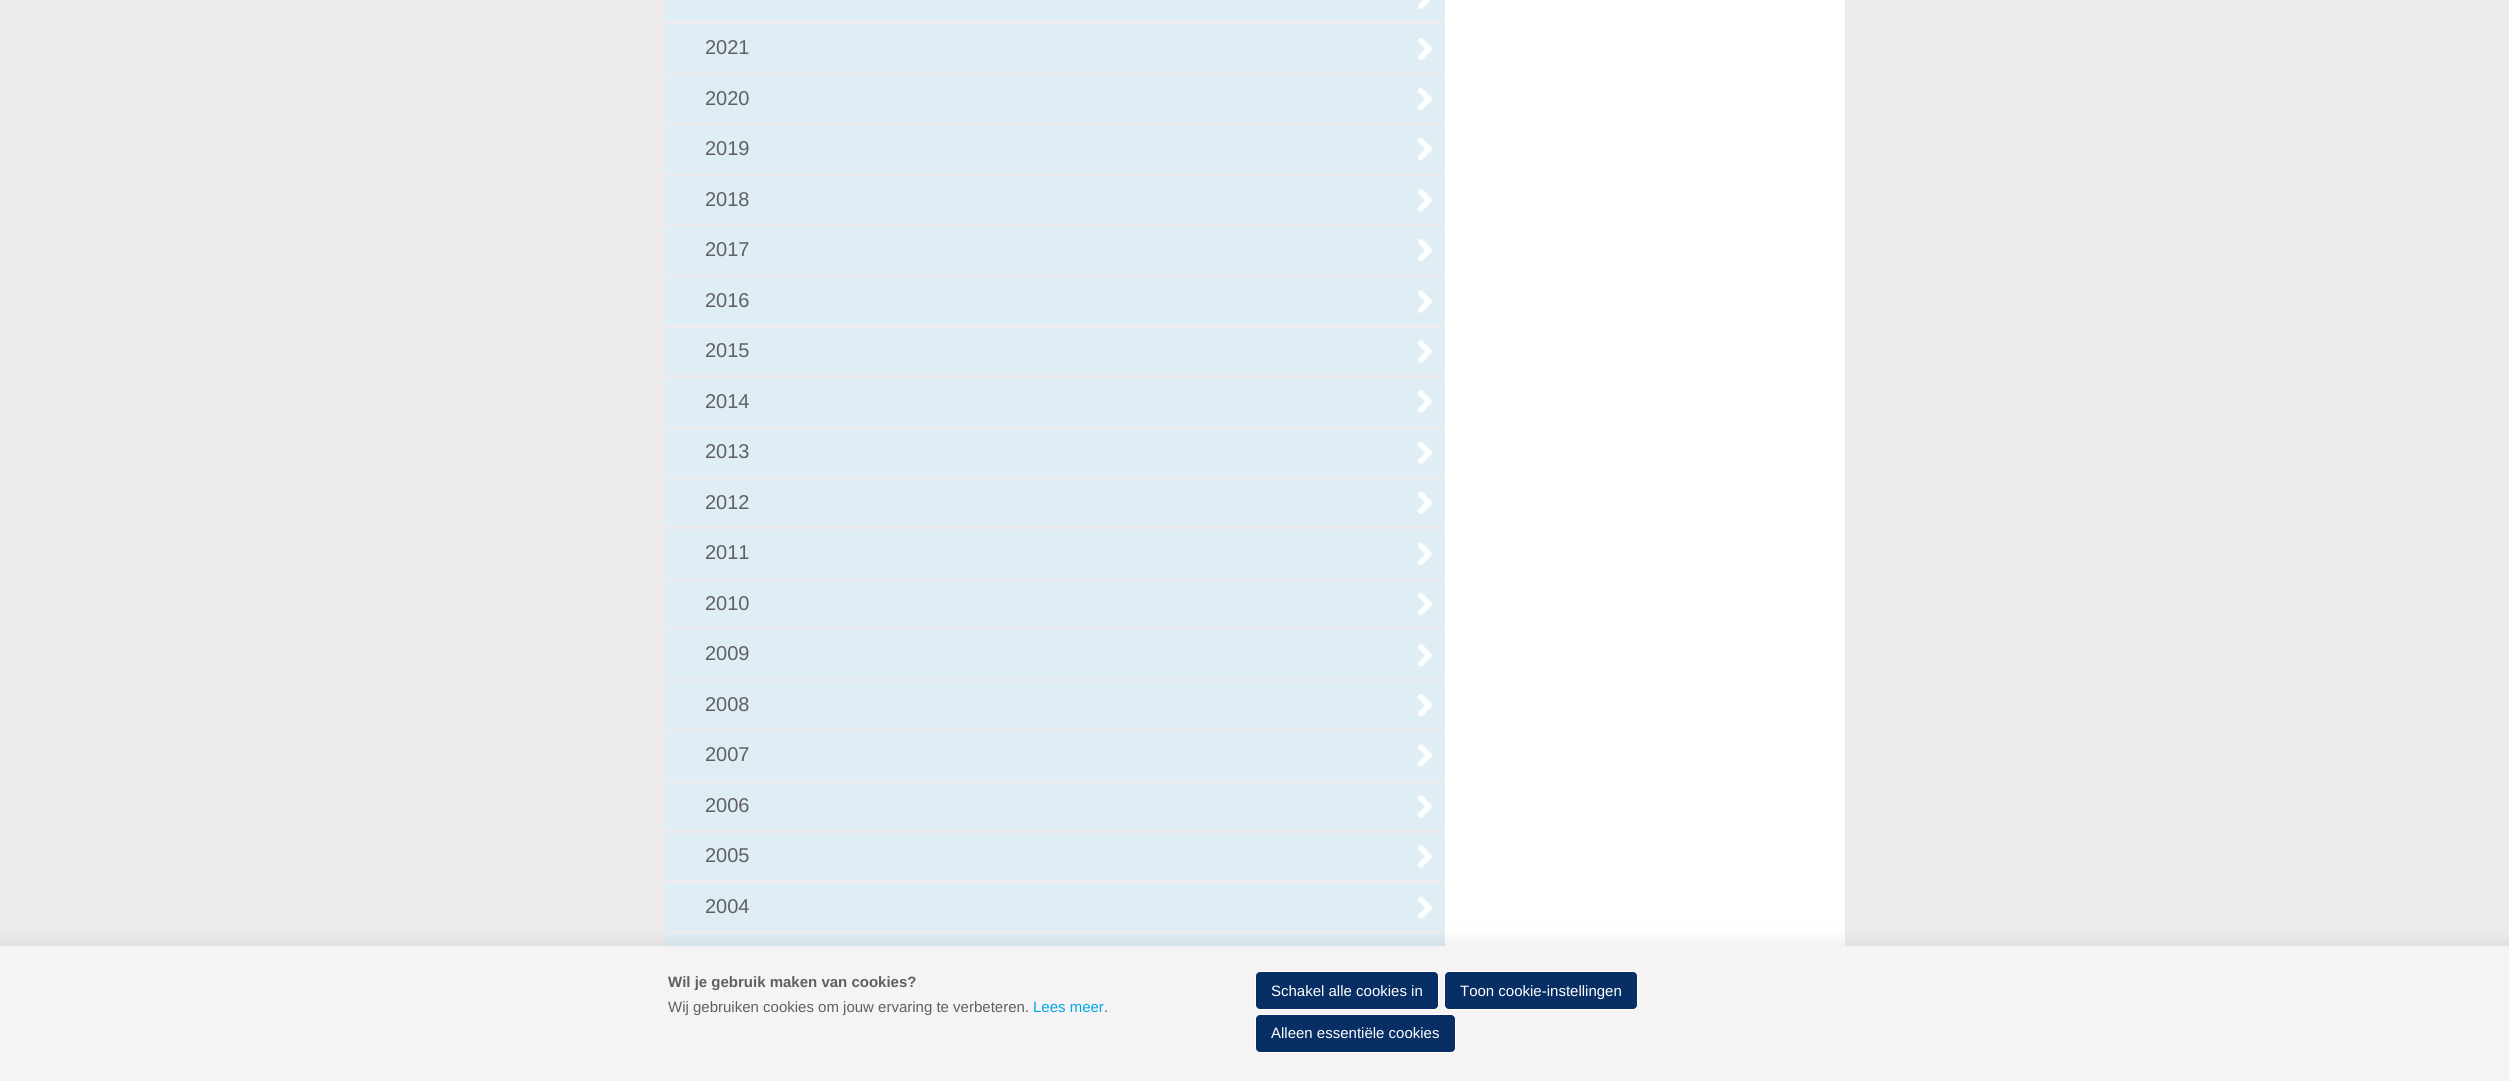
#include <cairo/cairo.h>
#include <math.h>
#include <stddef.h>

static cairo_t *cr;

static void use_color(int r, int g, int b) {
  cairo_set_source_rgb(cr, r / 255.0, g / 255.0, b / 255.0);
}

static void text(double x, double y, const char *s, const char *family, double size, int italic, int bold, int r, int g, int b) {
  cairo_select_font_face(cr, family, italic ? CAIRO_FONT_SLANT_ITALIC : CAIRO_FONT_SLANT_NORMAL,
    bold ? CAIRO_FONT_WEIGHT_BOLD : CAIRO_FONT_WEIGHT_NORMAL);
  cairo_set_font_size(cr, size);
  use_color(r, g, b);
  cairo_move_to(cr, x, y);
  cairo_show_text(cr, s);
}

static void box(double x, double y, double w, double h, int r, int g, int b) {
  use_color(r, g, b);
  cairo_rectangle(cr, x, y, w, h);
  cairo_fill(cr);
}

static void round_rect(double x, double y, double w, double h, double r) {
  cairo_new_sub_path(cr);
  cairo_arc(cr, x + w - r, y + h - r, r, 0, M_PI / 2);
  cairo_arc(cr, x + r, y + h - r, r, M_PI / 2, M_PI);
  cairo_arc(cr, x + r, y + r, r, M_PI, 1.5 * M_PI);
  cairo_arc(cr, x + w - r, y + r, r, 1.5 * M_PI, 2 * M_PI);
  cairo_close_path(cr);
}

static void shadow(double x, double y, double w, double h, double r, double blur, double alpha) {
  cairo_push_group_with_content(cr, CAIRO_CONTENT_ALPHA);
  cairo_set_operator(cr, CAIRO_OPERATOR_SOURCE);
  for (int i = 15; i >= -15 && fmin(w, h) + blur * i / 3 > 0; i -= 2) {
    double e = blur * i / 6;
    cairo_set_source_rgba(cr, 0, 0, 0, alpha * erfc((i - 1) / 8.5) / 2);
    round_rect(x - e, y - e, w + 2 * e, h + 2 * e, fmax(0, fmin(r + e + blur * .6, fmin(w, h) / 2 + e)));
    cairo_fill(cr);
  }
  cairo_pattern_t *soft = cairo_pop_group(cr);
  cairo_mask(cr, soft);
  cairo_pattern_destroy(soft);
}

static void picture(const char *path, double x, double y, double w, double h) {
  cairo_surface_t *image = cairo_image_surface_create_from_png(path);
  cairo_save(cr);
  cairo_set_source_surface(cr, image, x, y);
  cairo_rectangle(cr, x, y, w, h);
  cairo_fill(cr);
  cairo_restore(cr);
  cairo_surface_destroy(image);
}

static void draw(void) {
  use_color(237, 235, 235);
  cairo_paint(cr);
  box(1445, 0, 400, 946, 255, 255, 255);
  box(665, 0, 780, 21, 222, 238, 244);
  picture("img_01.png", 1417, 0, 14, 9);
  box(666, 32, 779, 33, 222, 238, 244);
  cairo_save(cr);
  cairo_rectangle(cr, 665, 0, 780, 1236);
  cairo_clip(cr);
  cairo_rectangle(cr, 662, 28, 787, 41);
  cairo_set_line_width(cr, 8);
  cairo_stroke(cr);
  cairo_restore(cr);
  picture("img_02.png", 1417, 37, 16, 24);
  box(666, 83, 779, 32, 222, 238, 244);
  cairo_save(cr);
  cairo_rectangle(cr, 665, 0, 780, 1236);
  cairo_clip(cr);
  cairo_rectangle(cr, 662, 79, 787, 40);
  cairo_set_line_width(cr, 8);
  cairo_stroke(cr);
  cairo_restore(cr);
  picture("img_03.png", 1417, 87, 16, 24);
  box(666, 133, 779, 33, 222, 238, 244);
  cairo_save(cr);
  cairo_rectangle(cr, 665, 0, 780, 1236);
  cairo_clip(cr);
  cairo_rectangle(cr, 662, 129, 787, 41);
  cairo_set_line_width(cr, 8);
  cairo_stroke(cr);
  cairo_restore(cr);
  picture("img_02.png", 1417, 137, 16, 24);
  box(666, 184, 779, 32, 222, 238, 244);
  cairo_save(cr);
  cairo_rectangle(cr, 665, 0, 780, 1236);
  cairo_clip(cr);
  cairo_rectangle(cr, 662, 180, 787, 40);
  cairo_set_line_width(cr, 8);
  cairo_stroke(cr);
  cairo_restore(cr);
  picture("img_04.png", 1417, 189, 16, 23);
  box(666, 234, 779, 32, 222, 238, 244);
  cairo_save(cr);
  cairo_rectangle(cr, 665, 0, 780, 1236);
  cairo_clip(cr);
  cairo_rectangle(cr, 662, 230, 787, 40);
  cairo_set_line_width(cr, 8);
  cairo_stroke(cr);
  cairo_restore(cr);
  picture("img_04.png", 1417, 239, 16, 23);
  box(666, 284, 779, 33, 222, 238, 244);
  cairo_save(cr);
  cairo_rectangle(cr, 665, 0, 780, 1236);
  cairo_clip(cr);
  cairo_rectangle(cr, 662, 280, 787, 41);
  cairo_set_line_width(cr, 8);
  cairo_stroke(cr);
  cairo_restore(cr);
  picture("img_05.png", 1417, 290, 16, 23);
  box(666, 336, 779, 31, 222, 238, 244);
  cairo_save(cr);
  cairo_rectangle(cr, 665, 0, 780, 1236);
  cairo_clip(cr);
  cairo_rectangle(cr, 662, 332, 787, 39);
  cairo_set_line_width(cr, 8);
  cairo_stroke(cr);
  cairo_restore(cr);
  picture("img_05.png", 1417, 340, 16, 23);
  box(666, 386, 779, 32, 222, 238, 244);
  cairo_save(cr);
  cairo_rectangle(cr, 665, 0, 780, 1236);
  cairo_clip(cr);
  cairo_rectangle(cr, 662, 382, 787, 40);
  cairo_set_line_width(cr, 8);
  cairo_stroke(cr);
  cairo_restore(cr);
  picture("img_05.png", 1417, 390, 16, 23);
  box(666, 437, 779, 31, 222, 238, 244);
  cairo_save(cr);
  cairo_rectangle(cr, 665, 0, 780, 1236);
  cairo_clip(cr);
  cairo_rectangle(cr, 662, 433, 787, 39);
  cairo_set_line_width(cr, 8);
  cairo_stroke(cr);
  cairo_restore(cr);
  picture("img_06.png", 1417, 441, 16, 23);
  box(666, 487, 779, 31, 222, 238, 244);
  cairo_save(cr);
  cairo_rectangle(cr, 665, 0, 780, 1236);
  cairo_clip(cr);
  cairo_rectangle(cr, 662, 483, 787, 39);
  cairo_set_line_width(cr, 8);
  cairo_stroke(cr);
  cairo_restore(cr);
  picture("img_06.png", 1417, 491, 16, 23);
  box(666, 537, 779, 33, 222, 238, 244);
  cairo_save(cr);
  cairo_rectangle(cr, 665, 0, 780, 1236);
  cairo_clip(cr);
  cairo_rectangle(cr, 662, 533, 787, 41);
  cairo_set_line_width(cr, 8);
  cairo_stroke(cr);
  cairo_restore(cr);
  picture("img_02.png", 1417, 542, 16, 24);
  box(666, 588, 779, 32, 222, 238, 244);
  cairo_save(cr);
  cairo_rectangle(cr, 665, 0, 780, 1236);
  cairo_clip(cr);
  cairo_rectangle(cr, 662, 584, 787, 40);
  cairo_set_line_width(cr, 8);
  cairo_stroke(cr);
  cairo_restore(cr);
  picture("img_02.png", 1417, 592, 16, 24);
  box(666, 638, 779, 33, 222, 238, 244);
  cairo_save(cr);
  cairo_rectangle(cr, 665, 0, 780, 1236);
  cairo_clip(cr);
  cairo_rectangle(cr, 662, 634, 787, 41);
  cairo_set_line_width(cr, 8);
  cairo_stroke(cr);
  cairo_restore(cr);
  picture("img_04.png", 1417, 644, 16, 23);
  box(666, 689, 779, 32, 222, 238, 244);
  cairo_save(cr);
  cairo_rectangle(cr, 665, 0, 780, 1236);
  cairo_clip(cr);
  cairo_rectangle(cr, 662, 685, 787, 40);
  cairo_set_line_width(cr, 8);
  cairo_stroke(cr);
  cairo_restore(cr);
  picture("img_04.png", 1417, 694, 16, 23);
  box(666, 739, 779, 33, 222, 238, 244);
  cairo_save(cr);
  cairo_rectangle(cr, 665, 0, 780, 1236);
  cairo_clip(cr);
  cairo_rectangle(cr, 662, 735, 787, 41);
  cairo_set_line_width(cr, 8);
  cairo_stroke(cr);
  cairo_restore(cr);
  picture("img_04.png", 1417, 744, 16, 23);
  box(666, 791, 779, 31, 222, 238, 244);
  cairo_save(cr);
  cairo_rectangle(cr, 665, 0, 780, 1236);
  cairo_clip(cr);
  cairo_rectangle(cr, 662, 787, 787, 39);
  cairo_set_line_width(cr, 8);
  cairo_stroke(cr);
  cairo_restore(cr);
  picture("img_05.png", 1417, 795, 16, 23);
  box(666, 841, 779, 31, 222, 238, 244);
  cairo_save(cr);
  cairo_rectangle(cr, 665, 0, 780, 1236);
  cairo_clip(cr);
  cairo_rectangle(cr, 662, 837, 787, 39);
  cairo_set_line_width(cr, 8);
  cairo_stroke(cr);
  cairo_restore(cr);
  picture("img_05.png", 1417, 845, 16, 23);
  box(666, 891, 779, 32, 222, 238, 244);
  cairo_save(cr);
  cairo_rectangle(cr, 665, 0, 780, 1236);
  cairo_clip(cr);
  cairo_rectangle(cr, 662, 887, 787, 40);
  cairo_set_line_width(cr, 8);
  cairo_stroke(cr);
  cairo_restore(cr);
  picture("img_06.png", 1417, 896, 16, 23);
  box(666, 942, 779, 4, 222, 238, 244);
  cairo_save(cr);
  cairo_rectangle(cr, 665, 0, 780, 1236);
  cairo_clip(cr);
  cairo_rectangle(cr, 662, 938, 787, 39);
  cairo_set_line_width(cr, 8);
  cairo_stroke(cr);
  cairo_restore(cr);
  use_color(0, 0, 0);
  shadow(0, 953, 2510, 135, 0, 12.5, 0.2);
  box(0, 946, 2509, 135, 245, 243, 243);
  use_color(7, 46, 101);
  round_rect(1255.5, 971.5, 183, 38, 4.5);
  cairo_fill_preserve(cr);
  use_color(255, 255, 255);
  cairo_set_line_width(cr, 1);
  cairo_stroke(cr);
  use_color(7, 46, 101);
  round_rect(1444.5, 971.5, 193, 38, 4.5);
  cairo_fill_preserve(cr);
  use_color(255, 255, 255);
  cairo_stroke(cr);
  use_color(7, 46, 101);
  round_rect(1255.5, 1014.5, 200, 38, 4.5);
  cairo_fill_preserve(cr);
  use_color(255, 255, 255);
  cairo_stroke(cr);
  text(705, 54, "2021", "Liberation Sans", 20, 0, 0, 96, 96, 96);
  text(705, 105, "2020", "Liberation Sans", 20, 0, 0, 96, 96, 96);
  text(705, 155, "2019", "Liberation Sans", 20, 0, 0, 96, 96, 96);
  text(705, 206, "2018", "Liberation Sans", 20, 0, 0, 96, 96, 96);
  text(705, 256, "2017", "Liberation Sans", 20, 0, 0, 96, 96, 96);
  text(705, 307, "2016", "Liberation Sans", 20, 0, 0, 96, 96, 96);
  text(705, 357, "2015", "Liberation Sans", 20, 0, 0, 96, 96, 96);
  text(705, 408, "2014", "Liberation Sans", 20, 0, 0, 96, 96, 96);
  text(705, 458, "2013", "Liberation Sans", 20, 0, 0, 96, 96, 96);
  text(705, 509, "2012", "Liberation Sans", 20, 0, 0, 96, 96, 96);
  text(705, 559, "2011", "Liberation Sans", 20, 0, 0, 96, 96, 96);
  text(705, 610, "2010", "Liberation Sans", 20, 0, 0, 96, 96, 96);
  text(705, 660, "2009", "Liberation Sans", 20, 0, 0, 96, 96, 96);
  text(705, 711, "2008", "Liberation Sans", 20, 0, 0, 96, 96, 96);
  text(705, 761, "2007", "Liberation Sans", 20, 0, 0, 96, 96, 96);
  text(705, 812, "2006", "Liberation Sans", 20, 0, 0, 96, 96, 96);
  text(705, 862, "2005", "Liberation Sans", 20, 0, 0, 96, 96, 96);
  text(705, 913, "2004", "Liberation Sans", 20, 0, 0, 96, 96, 96);
  text(668, 987, "Wil je gebruik maken van cookies?", "Liberation Sans", 15, 0, 1, 96, 96, 96);
  text(668, 1012, "Wij gebruiken cookies om jouw ervaring te verbeteren.", "Liberation Sans", 15, 0, 0, 96, 96, 96);
  text(1033, 1012, "Lees meer", "Liberation Sans", 15, 0, 0, 0, 167, 235);
  text(1104, 1012, ".", "Liberation Sans", 15, 0, 0, 96, 96, 96);
  text(1271, 996, "Schakel alle cookies in", "Liberation Sans", 15, 0, 0, 255, 255, 255);
  text(1460, 996, "Toon cookie-instellingen", "Liberation Sans", 15, 0, 0, 255, 255, 255);
  text(1271, 1038, "Alleen essentiële cookies", "Liberation Sans", 15, 0, 0, 255, 255, 255);
}

int main(void) {
  cairo_surface_t *surface = cairo_image_surface_create(CAIRO_FORMAT_RGB24, 2509, 1081);
  cr = cairo_create(surface);
  cairo_font_options_t *options = cairo_font_options_create();
  cairo_font_options_set_hint_metrics(options, CAIRO_HINT_METRICS_OFF);
  cairo_font_options_set_hint_style(options, CAIRO_HINT_STYLE_NONE);
  cairo_set_font_options(cr, options);
  cairo_set_miter_limit(cr, 4);
  draw();
  cairo_surface_write_to_png(surface, "out.png");
  cairo_font_options_destroy(options);
  cairo_destroy(cr);
  cairo_surface_destroy(surface);
  return 0;
}
